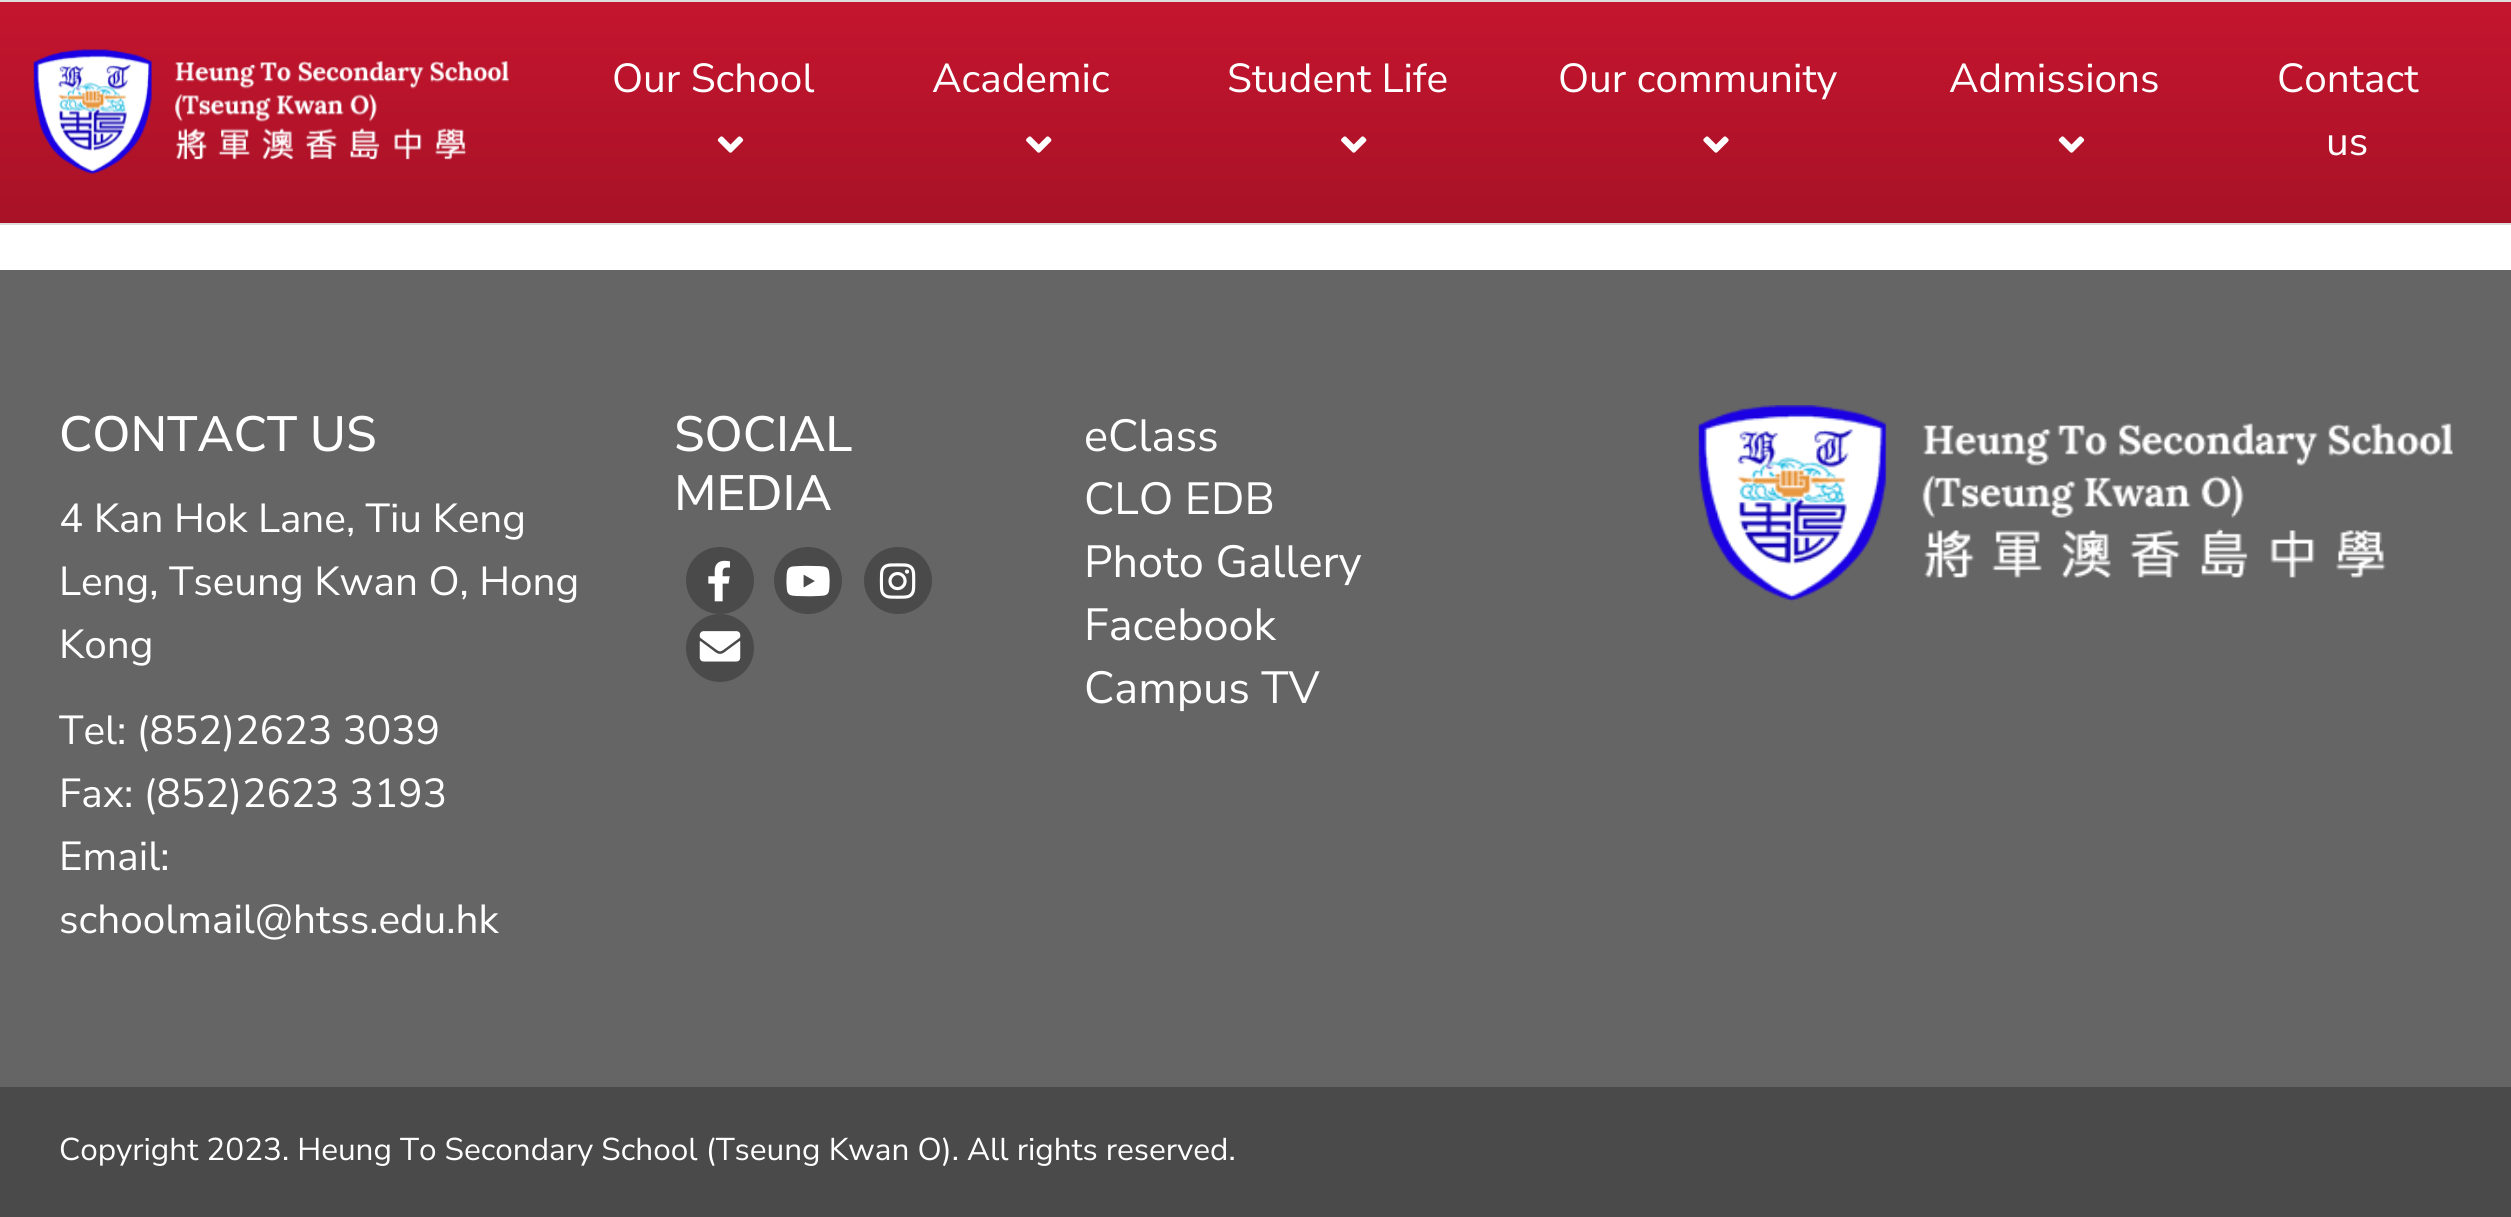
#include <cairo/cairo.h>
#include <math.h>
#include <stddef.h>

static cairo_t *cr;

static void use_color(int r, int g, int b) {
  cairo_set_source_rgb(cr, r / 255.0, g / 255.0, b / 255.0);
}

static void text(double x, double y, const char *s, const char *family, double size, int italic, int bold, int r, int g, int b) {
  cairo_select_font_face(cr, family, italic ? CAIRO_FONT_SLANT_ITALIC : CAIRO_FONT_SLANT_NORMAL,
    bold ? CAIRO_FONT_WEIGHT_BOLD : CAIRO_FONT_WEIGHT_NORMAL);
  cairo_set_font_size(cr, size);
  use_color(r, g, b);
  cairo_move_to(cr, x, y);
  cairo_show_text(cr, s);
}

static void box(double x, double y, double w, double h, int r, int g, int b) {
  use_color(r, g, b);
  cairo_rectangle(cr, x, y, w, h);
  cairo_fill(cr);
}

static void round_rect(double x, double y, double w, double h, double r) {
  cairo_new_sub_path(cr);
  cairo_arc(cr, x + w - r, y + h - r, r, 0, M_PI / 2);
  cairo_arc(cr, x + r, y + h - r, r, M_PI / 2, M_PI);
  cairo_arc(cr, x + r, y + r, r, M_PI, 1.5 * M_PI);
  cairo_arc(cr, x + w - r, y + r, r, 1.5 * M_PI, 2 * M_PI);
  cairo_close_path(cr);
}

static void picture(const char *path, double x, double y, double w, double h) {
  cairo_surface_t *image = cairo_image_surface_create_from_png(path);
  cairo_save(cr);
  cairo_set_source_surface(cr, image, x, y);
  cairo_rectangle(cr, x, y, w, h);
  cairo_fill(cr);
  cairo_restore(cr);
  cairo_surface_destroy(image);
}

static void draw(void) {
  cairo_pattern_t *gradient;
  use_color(255, 255, 255);
  cairo_paint(cr);
  gradient = cairo_pattern_create_linear(1256, 223, 1256, 2.2);
  cairo_pattern_add_color_stop_rgba(gradient, 0, 0.659, 0.071, 0.153, 1);
  cairo_pattern_add_color_stop_rgba(gradient, 1, 0.769, 0.082, 0.18, 1);
  cairo_set_source(cr, gradient);
  cairo_pattern_destroy(gradient);
  cairo_rectangle(cr, 0, 2, 2511, 221);
  cairo_fill(cr);
  box(0, 0, 2511, 2, 221, 221, 221);
  box(0, 223, 2511, 2, 221, 221, 221);
  picture("img_01.png", 33, 49, 476, 126);
  picture("img_02.png", 717, 136, 27, 17);
  picture("img_03.png", 1026, 136, 26, 17);
  picture("img_03.png", 1341, 136, 26, 17);
  picture("img_04.png", 1703, 136, 26, 17);
  picture("img_02.png", 2058, 136, 27, 17);
  box(0, 270, 2511, 817, 101, 101, 101);
  use_color(74, 74, 74);
  round_rect(686, 547, 68, 67, 33.5);
  cairo_fill(cr);
  picture("img_05.png", 708, 560, 22, 42);
  round_rect(774, 547, 68, 67, 33.5);
  cairo_fill(cr);
  picture("img_06.png", 786, 565, 44, 32);
  round_rect(864, 547, 68, 67, 33.5);
  cairo_fill(cr);
  picture("img_07.png", 879, 563, 37, 36);
  cairo_arc(cr, 720, 648, 34, 0, 2 * M_PI);
  cairo_fill(cr);
  picture("img_08.png", 699, 631, 42, 31);
  picture("img_09.png", 1698, 405, 755, 197);
  box(0, 1087, 2511, 130, 74, 74, 74);
  text(612, 92, "Our School", "Nunito Sans", 40.5, 0, 0, 255, 255, 255);
  text(932, 92, "Academic", "Nunito Sans", 40.5, 0, 0, 255, 255, 255);
  text(1227, 92, "Student Life", "Nunito Sans", 40.5, 0, 0, 255, 255, 255);
  text(1558, 92, "Our community", "Nunito Sans", 40.5, 0, 0, 255, 255, 255);
  text(1949, 92, "Admissions", "Nunito Sans", 40.5, 0, 0, 255, 255, 255);
  text(2277, 92, "Contact", "Nunito Sans", 40.5, 0, 0, 255, 255, 255);
  text(2326, 155, "us", "Nunito Sans", 40.5, 0, 0, 255, 255, 255);
  text(59, 451, "CONTACT US", "Nunito Sans Medium", 49.5, 0, 0, 255, 255, 255);
  text(59, 532, "4 Kan Hok Lane, Tiu Keng", "Nunito Sans", 40.5, 0, 0, 255, 255, 255);
  text(59, 595, "Leng, Tseung Kwan O, Hong", "Nunito Sans", 40.5, 0, 0, 255, 255, 255);
  text(59, 658, "Kong", "Nunito Sans", 40.5, 0, 0, 255, 255, 255);
  text(59, 744, "Tel: (852)2623 3039", "Nunito Sans", 40.5, 0, 0, 255, 255, 255);
  text(59, 807, "Fax: (852)2623 3193", "Nunito Sans", 40.5, 0, 0, 255, 255, 255);
  text(59, 870, "Email:", "Nunito Sans", 40.5, 0, 0, 255, 255, 255);
  text(59, 933, "schoolmail@htss.edu.hk", "Nunito Sans", 40.5, 0, 0, 255, 255, 255);
  text(674, 451, "SOCIAL", "Nunito Sans Medium", 49.5, 0, 0, 255, 255, 255);
  text(674, 510, "MEDIA", "Nunito Sans Medium", 49.5, 0, 0, 255, 255, 255);
  text(1084, 451, "eClass", "Nunito Sans", 45, 0, 0, 255, 255, 255);
  text(1084, 514, "CLO EDB", "Nunito Sans", 45, 0, 0, 255, 255, 255);
  text(1084, 577, "Photo Gallery", "Nunito Sans", 45, 0, 0, 255, 255, 255);
  text(1084, 640, "Facebook", "Nunito Sans", 45, 0, 0, 255, 255, 255);
  text(1084, 703, "Campus TV", "Nunito Sans", 45, 0, 0, 255, 255, 255);
  text(59, 1160, "Copyright 2023. Heung To Secondary School (Tseung Kwan O). All rights reserved.", "Nunito Sans", 31.5, 0, 0, 255, 255, 255);
}

int main(void) {
  cairo_surface_t *surface = cairo_image_surface_create(CAIRO_FORMAT_RGB24, 2511, 1217);
  cr = cairo_create(surface);
  cairo_font_options_t *options = cairo_font_options_create();
  cairo_font_options_set_hint_metrics(options, CAIRO_HINT_METRICS_OFF);
  cairo_font_options_set_hint_style(options, CAIRO_HINT_STYLE_NONE);
  cairo_set_font_options(cr, options);
  cairo_set_miter_limit(cr, 4);
  draw();
  cairo_surface_write_to_png(surface, "out.png");
  cairo_font_options_destroy(options);
  cairo_destroy(cr);
  cairo_surface_destroy(surface);
  return 0;
}
